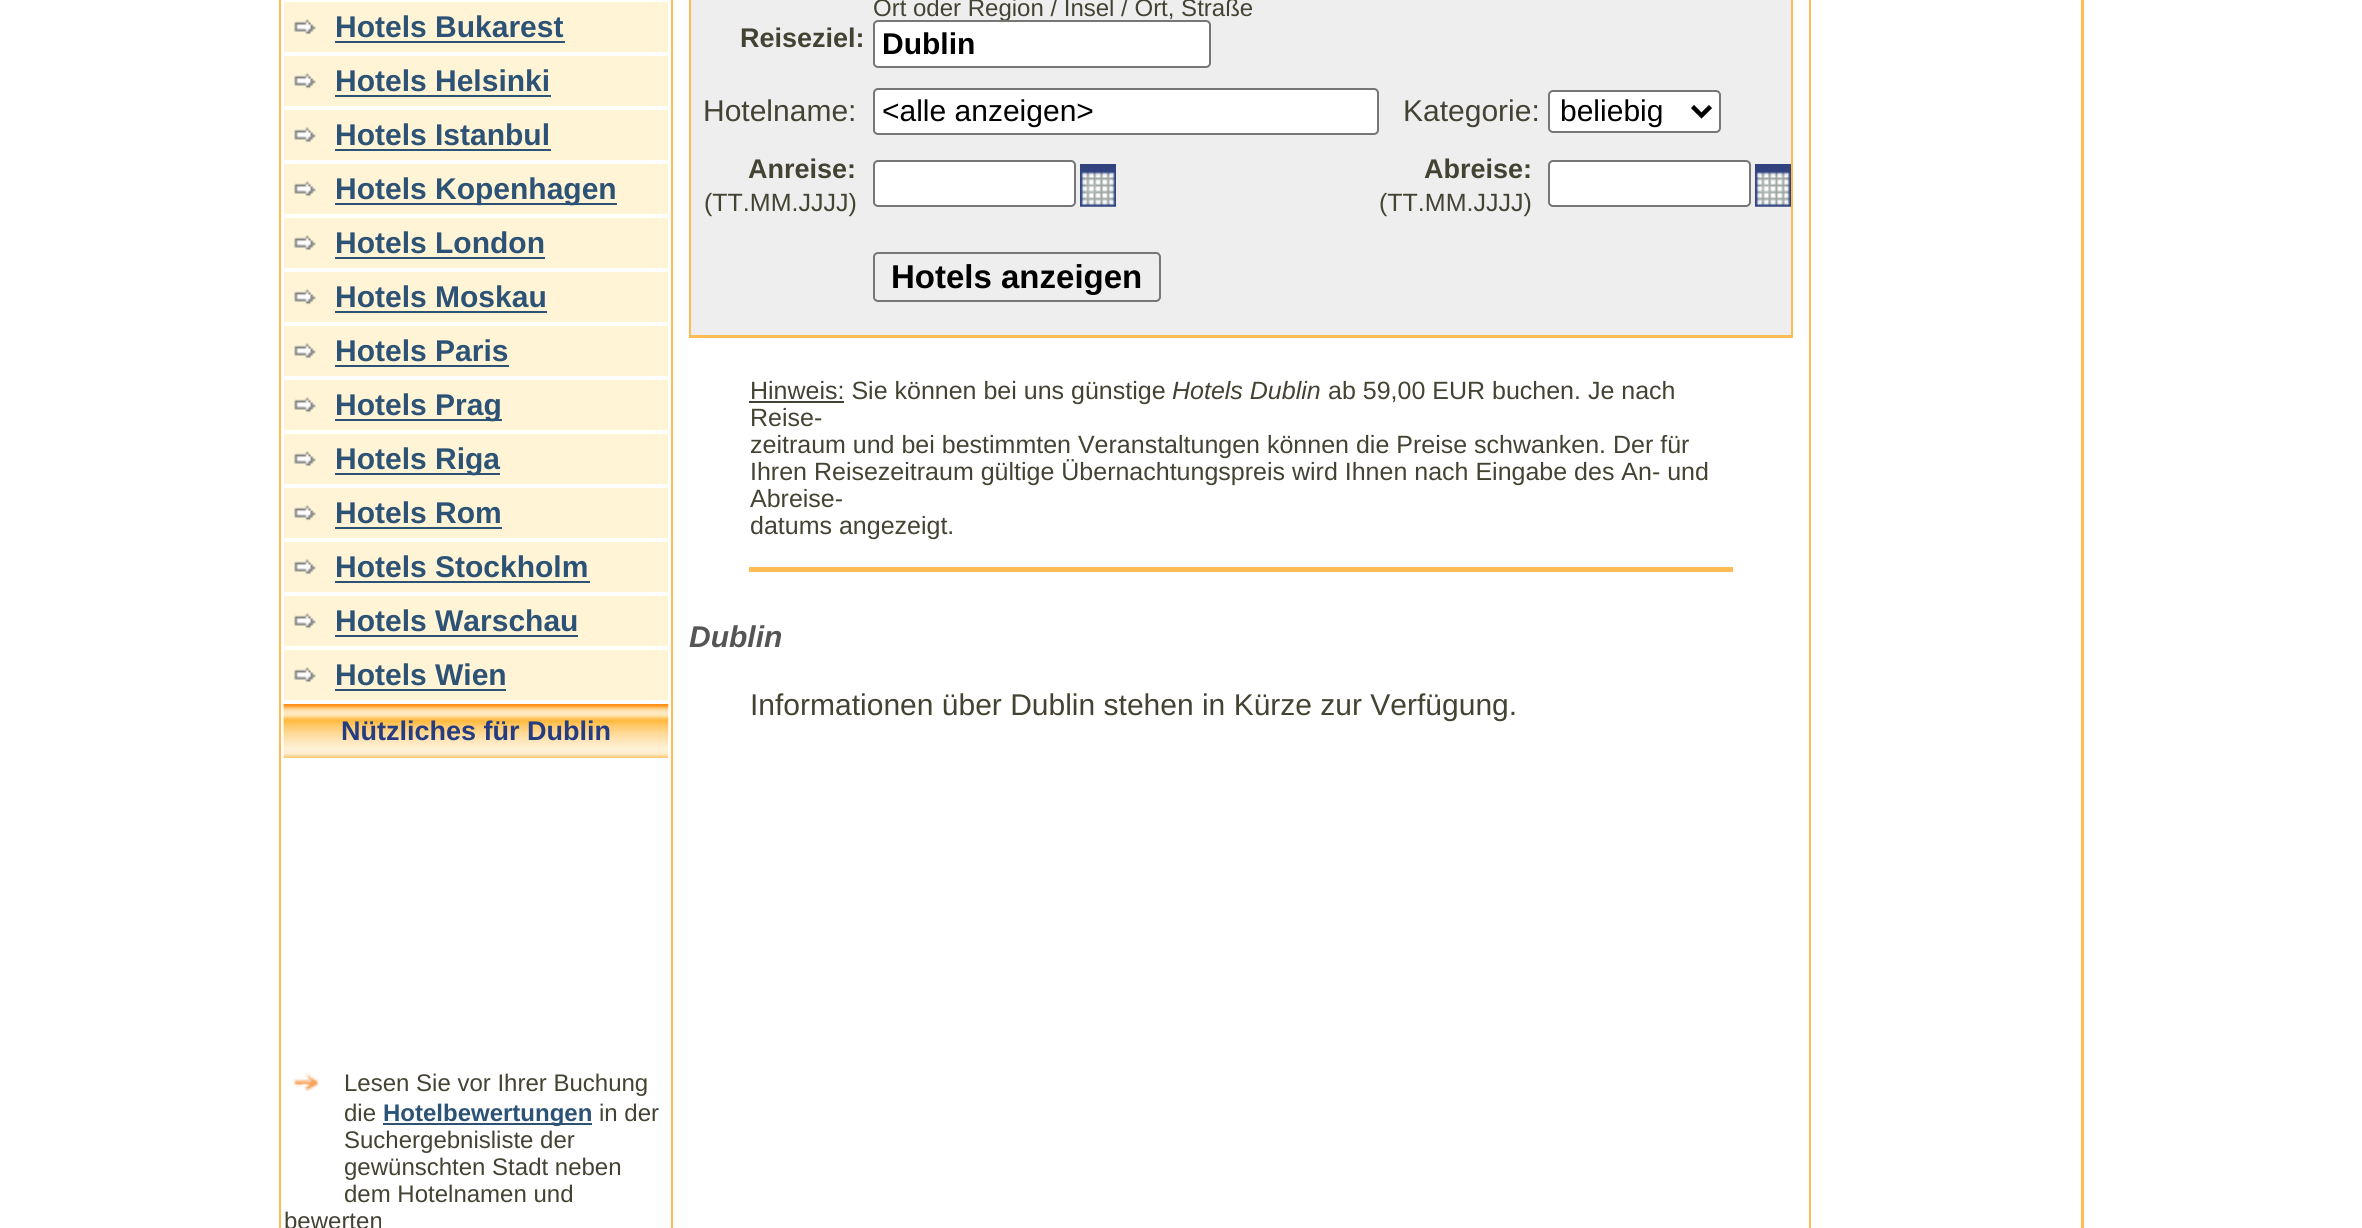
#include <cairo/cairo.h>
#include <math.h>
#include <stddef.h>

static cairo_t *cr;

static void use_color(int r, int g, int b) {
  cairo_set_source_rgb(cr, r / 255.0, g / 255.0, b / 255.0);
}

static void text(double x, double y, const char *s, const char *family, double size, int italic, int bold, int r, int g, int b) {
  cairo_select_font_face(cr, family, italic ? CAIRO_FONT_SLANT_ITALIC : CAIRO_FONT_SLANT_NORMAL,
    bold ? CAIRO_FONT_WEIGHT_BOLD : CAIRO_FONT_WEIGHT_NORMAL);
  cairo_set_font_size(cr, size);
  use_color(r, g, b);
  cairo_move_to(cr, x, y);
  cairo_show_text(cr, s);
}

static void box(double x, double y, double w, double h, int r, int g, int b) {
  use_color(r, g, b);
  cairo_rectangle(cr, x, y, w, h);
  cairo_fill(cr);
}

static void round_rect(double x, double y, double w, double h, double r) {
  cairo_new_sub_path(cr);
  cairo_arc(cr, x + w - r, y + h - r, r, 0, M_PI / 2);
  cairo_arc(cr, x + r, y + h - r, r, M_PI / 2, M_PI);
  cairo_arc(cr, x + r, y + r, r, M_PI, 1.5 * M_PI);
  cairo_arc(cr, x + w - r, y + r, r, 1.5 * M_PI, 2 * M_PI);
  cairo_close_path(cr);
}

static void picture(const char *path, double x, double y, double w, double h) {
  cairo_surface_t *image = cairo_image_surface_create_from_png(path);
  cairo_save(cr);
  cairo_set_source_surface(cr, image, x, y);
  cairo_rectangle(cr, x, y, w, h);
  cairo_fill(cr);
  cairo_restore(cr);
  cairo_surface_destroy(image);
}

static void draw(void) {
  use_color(255, 255, 255);
  cairo_paint(cr);
  box(279, 0, 1805, 1228, 255, 187, 84);
  box(281, 0, 1800, 1228, 255, 255, 255);
  box(284, 2, 384, 50, 255, 244, 214);
  picture("img_01.png", 294, 19, 22, 16);
  box(335, 41, 230, 2, 44, 82, 118);
  box(284, 56, 384, 50, 255, 244, 214);
  picture("img_02.png", 294, 73, 22, 16);
  box(335, 95, 216, 2, 44, 82, 118);
  box(284, 110, 384, 50, 255, 244, 214);
  picture("img_02.png", 294, 127, 22, 16);
  box(335, 149, 216, 2, 44, 82, 118);
  box(284, 164, 384, 50, 255, 244, 214);
  picture("img_02.png", 294, 181, 22, 16);
  box(335, 203, 282, 2, 44, 82, 118);
  box(284, 218, 384, 50, 255, 244, 214);
  picture("img_02.png", 294, 235, 22, 16);
  box(335, 257, 210, 2, 44, 82, 118);
  box(284, 272, 384, 50, 255, 244, 214);
  picture("img_02.png", 294, 289, 22, 16);
  box(335, 311, 212, 2, 44, 82, 118);
  box(284, 326, 384, 50, 255, 244, 214);
  picture("img_02.png", 294, 343, 22, 16);
  box(335, 365, 174, 2, 44, 82, 118);
  box(284, 380, 384, 50, 255, 244, 214);
  picture("img_02.png", 294, 397, 22, 16);
  box(335, 419, 167, 2, 44, 82, 118);
  box(284, 434, 384, 50, 255, 244, 214);
  picture("img_02.png", 294, 451, 22, 16);
  box(335, 473, 165, 2, 44, 82, 118);
  box(284, 488, 384, 50, 255, 244, 214);
  picture("img_02.png", 294, 505, 22, 16);
  box(335, 527, 167, 2, 44, 82, 118);
  box(284, 542, 384, 50, 255, 244, 214);
  picture("img_02.png", 294, 559, 22, 16);
  box(335, 581, 255, 2, 44, 82, 118);
  box(284, 596, 384, 50, 255, 244, 214);
  picture("img_02.png", 294, 613, 22, 16);
  box(335, 635, 243, 2, 44, 82, 118);
  box(284, 650, 384, 50, 255, 244, 214);
  picture("img_02.png", 294, 667, 22, 16);
  box(335, 689, 171, 2, 44, 82, 118);
  picture("img_03.png", 283, 704, 386, 54);
  picture("img_04.png", 292, 1073, 28, 18);
  box(383, 1123, 209, 2, 44, 82, 118);
  box(671, 0, 2, 1228, 255, 187, 84);
  box(689, 0, 1104, 338, 255, 187, 84);
  box(691, 0, 1100, 335, 238, 238, 238);
  use_color(255, 255, 255);
  round_rect(874, 89, 504, 45, 4);
  cairo_fill_preserve(cr);
  use_color(118, 118, 118);
  cairo_stroke(cr);
  use_color(255, 255, 255);
  round_rect(1549, 91, 171, 41, 4);
  cairo_fill_preserve(cr);
  use_color(118, 118, 118);
  cairo_stroke(cr);
  cairo_new_path(cr);
  cairo_move_to(cr, 1692.5, 106.5);
  cairo_line_to(cr, 1701.5, 115.5);
  cairo_line_to(cr, 1710.5, 106.5);
  use_color(0, 0, 0);
  cairo_set_line_width(cr, 4.5);
  cairo_stroke(cr);
  use_color(255, 255, 255);
  round_rect(874, 161, 201, 45, 4);
  cairo_fill_preserve(cr);
  use_color(118, 118, 118);
  cairo_set_line_width(cr, 2);
  cairo_stroke(cr);
  picture("img_05.png", 1080, 164, 36, 43);
  use_color(255, 255, 255);
  round_rect(1549, 161, 201, 45, 4);
  cairo_fill_preserve(cr);
  use_color(118, 118, 118);
  cairo_stroke(cr);
  picture("img_06.png", 1755, 164, 36, 43);
  round_rect(874, 253, 286, 48, 4);
  cairo_stroke(cr);
  box(749, 401, 95, 2, 68, 67, 51);
  box(749, 567, 984, 5, 255, 187, 84);
  box(1809, 0, 2, 1228, 255, 187, 84);
  text(335, 37, "Hotels Bukarest", "Liberation Sans", 30, 0, 1, 44, 82, 118);
  text(335, 91, "Hotels Helsinki", "Liberation Sans", 30, 0, 1, 44, 82, 118);
  text(335, 145, "Hotels Istanbul", "Liberation Sans", 30, 0, 1, 44, 82, 118);
  text(335, 199, "Hotels Kopenhagen", "Liberation Sans", 30, 0, 1, 44, 82, 118);
  text(335, 253, "Hotels London", "Liberation Sans", 30, 0, 1, 44, 82, 118);
  text(335, 307, "Hotels Moskau", "Liberation Sans", 30, 0, 1, 44, 82, 118);
  text(335, 361, "Hotels Paris", "Liberation Sans", 30, 0, 1, 44, 82, 118);
  text(335, 415, "Hotels Prag", "Liberation Sans", 30, 0, 1, 44, 82, 118);
  text(335, 469, "Hotels Riga", "Liberation Sans", 30, 0, 1, 44, 82, 118);
  text(335, 523, "Hotels Rom", "Liberation Sans", 30, 0, 1, 44, 82, 118);
  text(335, 577, "Hotels Stockholm", "Liberation Sans", 30, 0, 1, 44, 82, 118);
  text(335, 631, "Hotels Warschau", "Liberation Sans", 30, 0, 1, 44, 82, 118);
  text(335, 685, "Hotels Wien", "Liberation Sans", 30, 0, 1, 44, 82, 118);
  text(341, 740, "Nützliches für Dublin", "Liberation Sans", 27, 0, 1, 37, 60, 129);
  text(344, 1091, "Lesen Sie vor Ihrer Buchung", "Liberation Sans", 24, 0, 0, 68, 67, 51);
  text(344, 1121, "die", "Liberation Sans", 24, 0, 0, 68, 67, 51);
  text(383, 1121, "Hotelbewertungen", "Liberation Sans", 24, 0, 1, 44, 82, 118);
  text(599, 1121, "in der", "Liberation Sans", 24, 0, 0, 68, 67, 51);
  text(344, 1148, "Suchergebnisliste der", "Liberation Sans", 24, 0, 0, 68, 67, 51);
  text(344, 1175, "gewünschten Stadt neben", "Liberation Sans", 24, 0, 0, 68, 67, 51);
  text(344, 1202, "dem Hotelnamen und", "Liberation Sans", 24, 0, 0, 68, 67, 51);
  text(284, 1229, "bewerten", "Liberation Sans", 24, 0, 0, 68, 67, 51);
  text(740, 47, "Reiseziel:", "Liberation Sans", 27, 0, 1, 68, 67, 51);
  text(873, 16, "Ort oder Region / Insel / Ort, Straße", "Liberation Sans", 24, 0, 0, 68, 67, 51);
  use_color(255, 255, 255);
  round_rect(874, 21, 336, 46, 4);
  cairo_fill_preserve(cr);
  use_color(118, 118, 118);
  cairo_stroke(cr);
  text(882, 54, "Dublin", "Liberation Sans", 30, 0, 1, 0, 0, 0);
  text(703, 121, "Hotelname:", "Liberation Sans", 30, 0, 0, 68, 67, 51);
  text(882, 121, "<alle anzeigen>", "Liberation Sans", 30, 0, 0, 0, 0, 0);
  text(1403, 121, "Kategorie:", "Liberation Sans", 30, 0, 0, 68, 67, 51);
  text(1560, 121, "beliebig", "Liberation Sans", 30, 0, 0, 0, 0, 0);
  text(748, 178, "Anreise:", "Liberation Sans", 27, 0, 1, 68, 67, 51);
  text(704, 211, "(TT.MM.JJJJ)", "Liberation Sans", 25, 0, 0, 68, 67, 51);
  text(1424, 178, "Abreise:", "Liberation Sans", 27, 0, 1, 68, 67, 51);
  text(1379, 211, "(TT.MM.JJJJ)", "Liberation Sans", 25, 0, 0, 68, 67, 51);
  text(891, 288, "Hotels anzeigen", "Liberation Sans", 33, 0, 1, 0, 0, 0);
  text(750, 399, "Hinweis: Sie können bei uns günstige", "Liberation Sans", 25, 0, 0, 68, 67, 51);
  text(1172, 399, "Hotels Dublin", "Liberation Sans", 25, 1, 0, 68, 67, 51);
  text(1328, 399, "ab 59,00 EUR buchen. Je nach", "Liberation Sans", 25, 0, 0, 68, 67, 51);
  text(750, 426, "Reise-", "Liberation Sans", 25, 0, 0, 68, 67, 51);
  text(750, 453, "zeitraum und bei bestimmten Veranstaltungen können die Preise schwanken. Der für", "Liberation Sans", 25, 0, 0, 68, 67, 51);
  text(750, 480, "Ihren Reisezeitraum gültige Übernachtungspreis wird Ihnen nach Eingabe des An- und", "Liberation Sans", 25, 0, 0, 68, 67, 51);
  text(750, 507, "Abreise-", "Liberation Sans", 25, 0, 0, 68, 67, 51);
  text(750, 534, "datums angezeigt.", "Liberation Sans", 25, 0, 0, 68, 67, 51);
  text(689, 647, "Dublin", "Liberation Sans", 30, 1, 1, 85, 85, 85);
  text(750, 715, "Informationen über Dublin stehen in Kürze zur Verfügung.", "Liberation Sans", 30, 0, 0, 68, 67, 51);
}

int main(void) {
  cairo_surface_t *surface = cairo_image_surface_create(CAIRO_FORMAT_RGB24, 2362, 1228);
  cr = cairo_create(surface);
  cairo_font_options_t *options = cairo_font_options_create();
  cairo_font_options_set_hint_metrics(options, CAIRO_HINT_METRICS_OFF);
  cairo_font_options_set_hint_style(options, CAIRO_HINT_STYLE_NONE);
  cairo_set_font_options(cr, options);
  cairo_set_miter_limit(cr, 4);
  draw();
  cairo_surface_write_to_png(surface, "out.png");
  cairo_font_options_destroy(options);
  cairo_destroy(cr);
  cairo_surface_destroy(surface);
  return 0;
}
